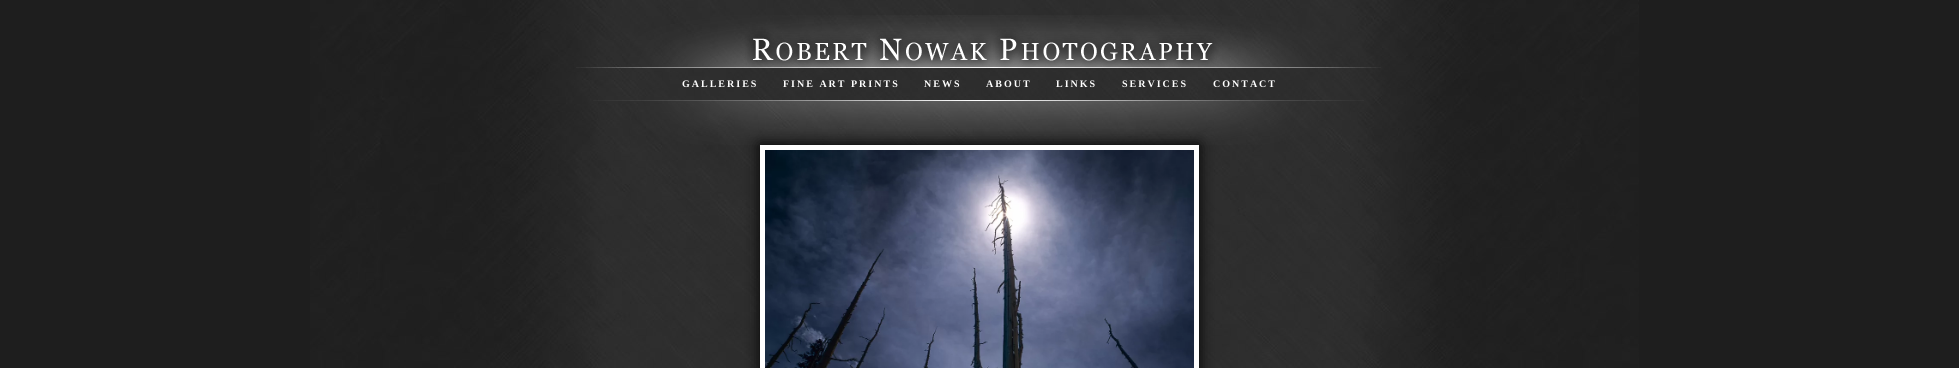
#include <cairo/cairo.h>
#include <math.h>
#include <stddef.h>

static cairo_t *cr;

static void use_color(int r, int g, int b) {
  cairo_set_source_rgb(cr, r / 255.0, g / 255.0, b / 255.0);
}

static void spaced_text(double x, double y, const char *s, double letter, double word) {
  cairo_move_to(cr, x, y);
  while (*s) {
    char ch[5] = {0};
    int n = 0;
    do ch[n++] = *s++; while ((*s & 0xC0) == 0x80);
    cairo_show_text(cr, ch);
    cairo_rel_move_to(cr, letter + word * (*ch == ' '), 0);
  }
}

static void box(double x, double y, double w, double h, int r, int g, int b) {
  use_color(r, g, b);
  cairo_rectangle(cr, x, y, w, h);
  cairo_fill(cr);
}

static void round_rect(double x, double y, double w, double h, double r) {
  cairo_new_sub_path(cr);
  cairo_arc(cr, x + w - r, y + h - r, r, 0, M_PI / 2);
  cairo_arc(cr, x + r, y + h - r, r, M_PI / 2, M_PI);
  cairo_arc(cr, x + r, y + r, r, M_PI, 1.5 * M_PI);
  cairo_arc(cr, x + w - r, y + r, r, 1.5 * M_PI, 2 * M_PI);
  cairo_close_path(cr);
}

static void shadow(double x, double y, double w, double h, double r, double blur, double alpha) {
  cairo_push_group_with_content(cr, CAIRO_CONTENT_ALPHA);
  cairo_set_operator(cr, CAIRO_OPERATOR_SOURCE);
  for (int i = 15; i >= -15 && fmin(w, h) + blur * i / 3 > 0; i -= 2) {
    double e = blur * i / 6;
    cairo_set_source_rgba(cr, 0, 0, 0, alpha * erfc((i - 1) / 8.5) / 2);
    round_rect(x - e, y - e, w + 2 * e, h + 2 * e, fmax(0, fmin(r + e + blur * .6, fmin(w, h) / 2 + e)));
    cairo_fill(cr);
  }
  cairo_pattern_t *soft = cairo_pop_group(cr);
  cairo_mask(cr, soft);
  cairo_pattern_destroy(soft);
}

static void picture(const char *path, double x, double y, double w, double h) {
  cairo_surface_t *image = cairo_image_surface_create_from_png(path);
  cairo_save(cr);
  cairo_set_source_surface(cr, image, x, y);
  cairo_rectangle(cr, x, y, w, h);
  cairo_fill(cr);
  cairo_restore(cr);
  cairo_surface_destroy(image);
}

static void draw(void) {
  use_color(30, 30, 30);
  cairo_paint(cr);
  picture("img_01.png", 310, 0, 1329, 368);
  picture("img_02.png", 576, 15, 805, 53);
  picture("img_03.png", 593, 100, 771, 45);
  use_color(0, 0, 0);
  shadow(760, 145, 439, 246, 0, 7.5, 0.99);
  box(760, 145, 439, 223, 255, 255, 255);
  picture("img_04.png", 765, 150, 429, 218);
  cairo_select_font_face(cr, "Liberation Serif", CAIRO_FONT_SLANT_NORMAL, CAIRO_FONT_WEIGHT_BOLD);
  cairo_set_font_size(cr, 10);
  spaced_text(682, 87, "GALLERIES", 2, 0);
  spaced_text(783, 87, "FINE ART PRINTS", 2, 0);
  spaced_text(924, 87, "NEWS", 2, 0);
  spaced_text(986, 87, "ABOUT", 2, 0);
  spaced_text(1056, 87, "LINKS", 2, 0);
  spaced_text(1122, 87, "SERVICES", 2, 0);
  spaced_text(1213, 87, "CONTACT", 2, 0);
}

int main(void) {
  cairo_surface_t *surface = cairo_image_surface_create(CAIRO_FORMAT_RGB24, 1959, 368);
  cr = cairo_create(surface);
  cairo_font_options_t *options = cairo_font_options_create();
  cairo_font_options_set_hint_metrics(options, CAIRO_HINT_METRICS_OFF);
  cairo_font_options_set_hint_style(options, CAIRO_HINT_STYLE_NONE);
  cairo_set_font_options(cr, options);
  cairo_set_miter_limit(cr, 4);
  draw();
  cairo_surface_write_to_png(surface, "out.png");
  cairo_font_options_destroy(options);
  cairo_destroy(cr);
  cairo_surface_destroy(surface);
  return 0;
}
